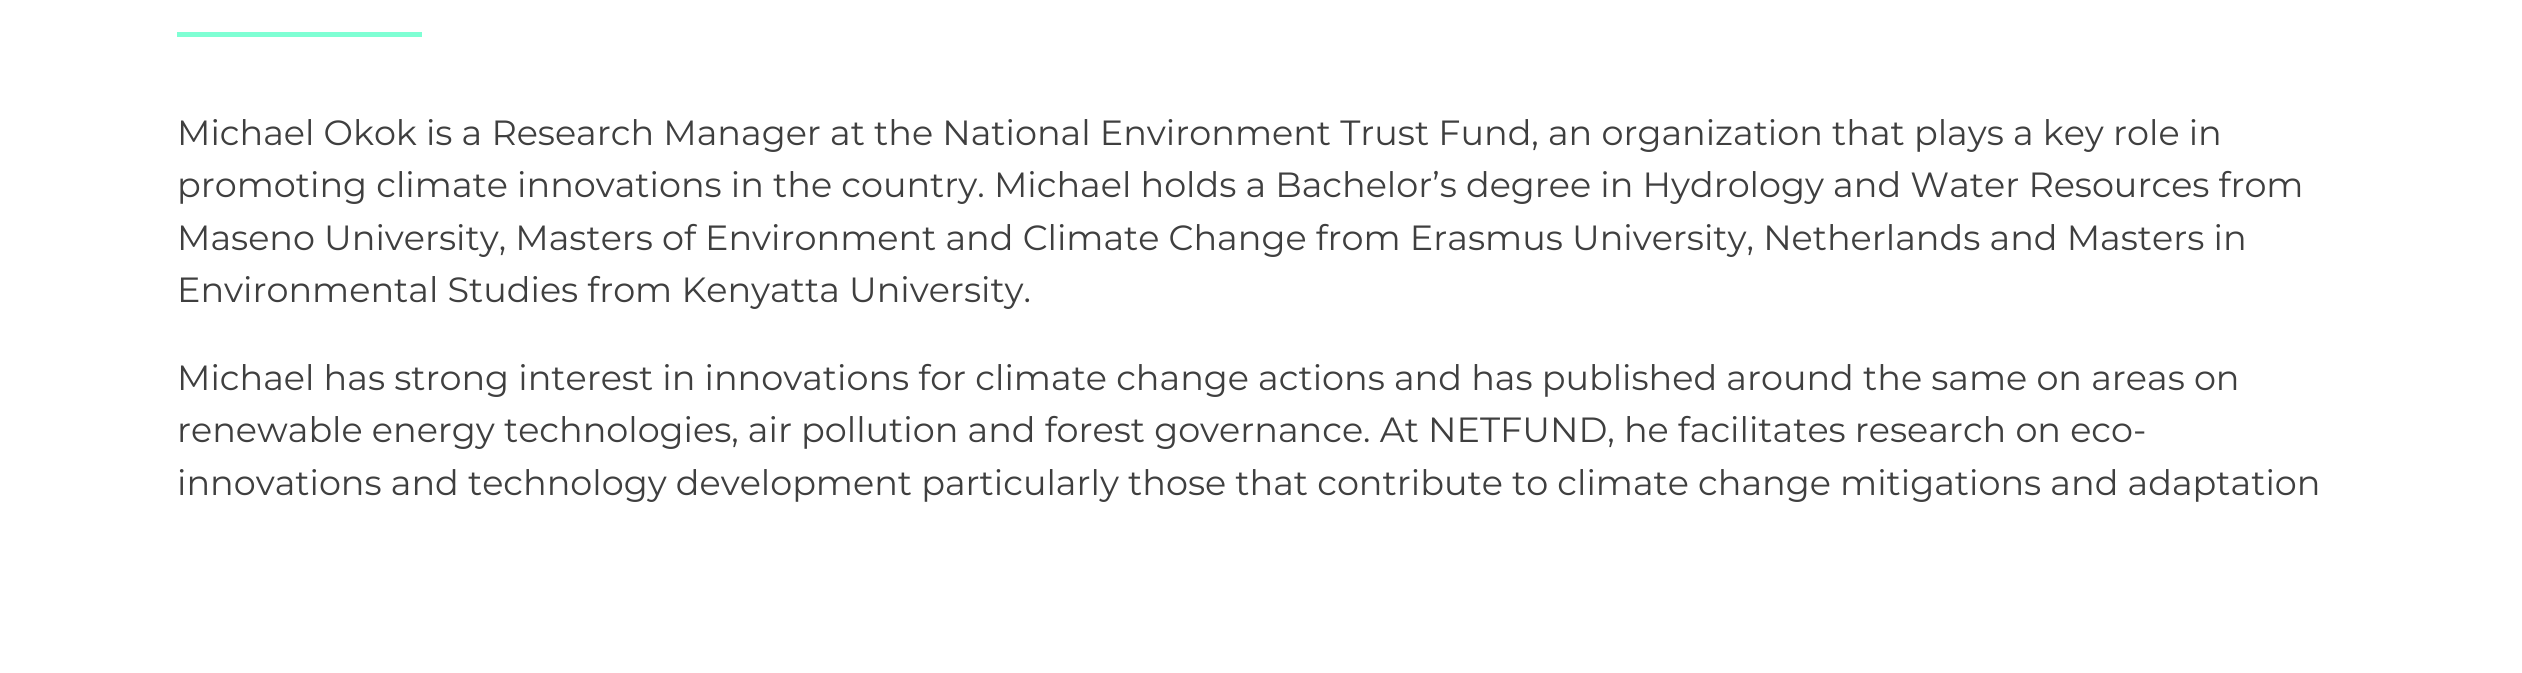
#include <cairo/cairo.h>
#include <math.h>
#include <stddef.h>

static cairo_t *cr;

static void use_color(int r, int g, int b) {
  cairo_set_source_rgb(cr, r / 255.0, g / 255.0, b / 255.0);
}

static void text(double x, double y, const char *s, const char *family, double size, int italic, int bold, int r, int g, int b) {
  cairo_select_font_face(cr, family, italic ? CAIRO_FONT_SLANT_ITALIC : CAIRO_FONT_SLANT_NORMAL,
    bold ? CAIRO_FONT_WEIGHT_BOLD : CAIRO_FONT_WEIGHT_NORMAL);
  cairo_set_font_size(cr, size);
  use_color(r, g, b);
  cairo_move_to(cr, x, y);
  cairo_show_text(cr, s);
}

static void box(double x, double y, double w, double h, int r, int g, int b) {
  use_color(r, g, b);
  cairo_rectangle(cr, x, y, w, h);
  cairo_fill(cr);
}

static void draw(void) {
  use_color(255, 255, 255);
  cairo_paint(cr);
  box(177, 32, 245, 5, 127, 255, 212);
  text(177, 145, "Michael Okok is a Research Manager at the National Environment Trust Fund, an organization that plays a key role in", "Montserrat", 35, 0, 0, 63, 63, 63);
  text(177, 197, "promoting climate innovations in the country. Michael holds a Bachelor’s degree in Hydrology and Water Resources from", "Montserrat", 35, 0, 0, 63, 63, 63);
  text(177, 250, "Maseno University, Masters of Environment and Climate Change from Erasmus University, Netherlands and Masters in", "Montserrat", 35, 0, 0, 63, 63, 63);
  text(177, 302, "Environmental Studies from Kenyatta University.", "Montserrat", 35, 0, 0, 63, 63, 63);
  text(177, 390, "Michael has strong interest in innovations for climate change actions and has published around the same on areas on", "Montserrat", 35, 0, 0, 63, 63, 63);
  text(177, 442, "renewable energy technologies, air pollution and forest governance. At NETFUND, he facilitates research on eco-", "Montserrat", 35, 0, 0, 63, 63, 63);
  text(177, 495, "innovations and technology development particularly those that contribute to climate change mitigations and adaptation", "Montserrat", 35, 0, 0, 63, 63, 63);
}

int main(void) {
  cairo_surface_t *surface = cairo_image_surface_create(CAIRO_FORMAT_RGB24, 2522, 673);
  cr = cairo_create(surface);
  cairo_font_options_t *options = cairo_font_options_create();
  cairo_font_options_set_hint_metrics(options, CAIRO_HINT_METRICS_OFF);
  cairo_font_options_set_hint_style(options, CAIRO_HINT_STYLE_NONE);
  cairo_set_font_options(cr, options);
  cairo_set_miter_limit(cr, 4);
  draw();
  cairo_surface_write_to_png(surface, "out.png");
  cairo_font_options_destroy(options);
  cairo_destroy(cr);
  cairo_surface_destroy(surface);
  return 0;
}
